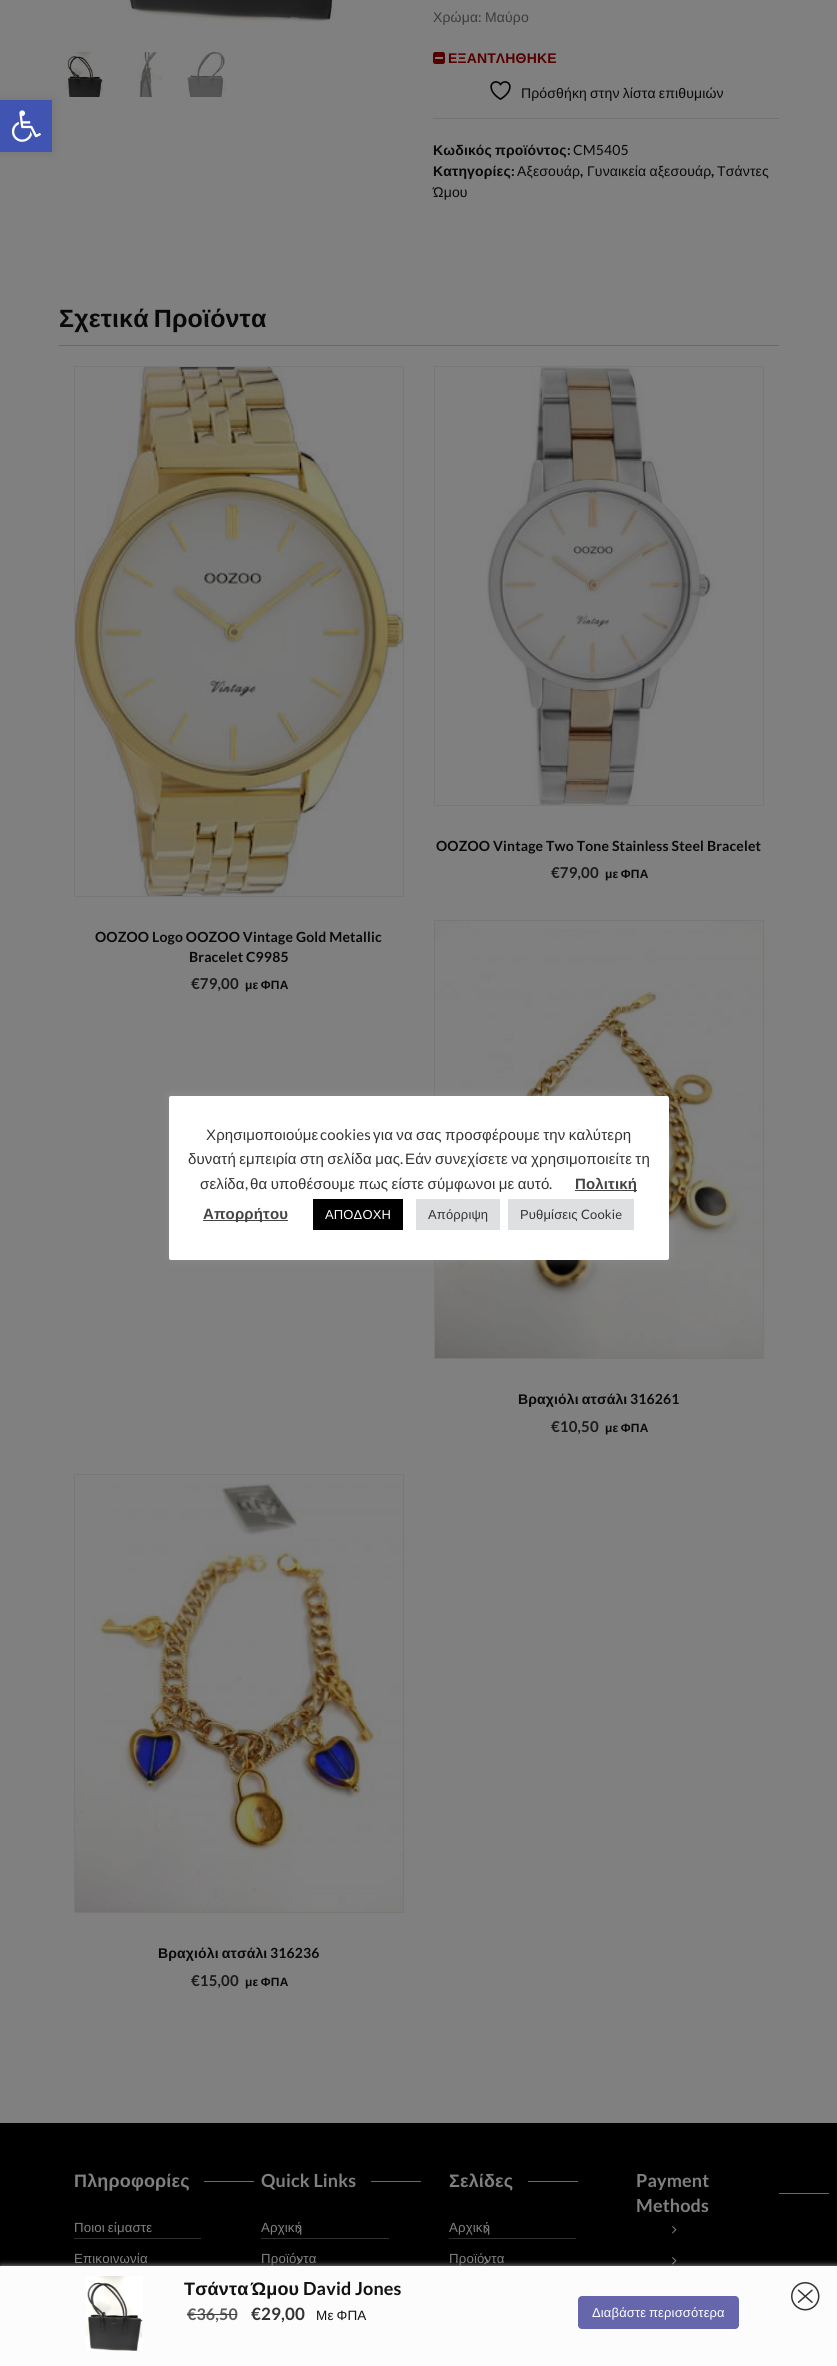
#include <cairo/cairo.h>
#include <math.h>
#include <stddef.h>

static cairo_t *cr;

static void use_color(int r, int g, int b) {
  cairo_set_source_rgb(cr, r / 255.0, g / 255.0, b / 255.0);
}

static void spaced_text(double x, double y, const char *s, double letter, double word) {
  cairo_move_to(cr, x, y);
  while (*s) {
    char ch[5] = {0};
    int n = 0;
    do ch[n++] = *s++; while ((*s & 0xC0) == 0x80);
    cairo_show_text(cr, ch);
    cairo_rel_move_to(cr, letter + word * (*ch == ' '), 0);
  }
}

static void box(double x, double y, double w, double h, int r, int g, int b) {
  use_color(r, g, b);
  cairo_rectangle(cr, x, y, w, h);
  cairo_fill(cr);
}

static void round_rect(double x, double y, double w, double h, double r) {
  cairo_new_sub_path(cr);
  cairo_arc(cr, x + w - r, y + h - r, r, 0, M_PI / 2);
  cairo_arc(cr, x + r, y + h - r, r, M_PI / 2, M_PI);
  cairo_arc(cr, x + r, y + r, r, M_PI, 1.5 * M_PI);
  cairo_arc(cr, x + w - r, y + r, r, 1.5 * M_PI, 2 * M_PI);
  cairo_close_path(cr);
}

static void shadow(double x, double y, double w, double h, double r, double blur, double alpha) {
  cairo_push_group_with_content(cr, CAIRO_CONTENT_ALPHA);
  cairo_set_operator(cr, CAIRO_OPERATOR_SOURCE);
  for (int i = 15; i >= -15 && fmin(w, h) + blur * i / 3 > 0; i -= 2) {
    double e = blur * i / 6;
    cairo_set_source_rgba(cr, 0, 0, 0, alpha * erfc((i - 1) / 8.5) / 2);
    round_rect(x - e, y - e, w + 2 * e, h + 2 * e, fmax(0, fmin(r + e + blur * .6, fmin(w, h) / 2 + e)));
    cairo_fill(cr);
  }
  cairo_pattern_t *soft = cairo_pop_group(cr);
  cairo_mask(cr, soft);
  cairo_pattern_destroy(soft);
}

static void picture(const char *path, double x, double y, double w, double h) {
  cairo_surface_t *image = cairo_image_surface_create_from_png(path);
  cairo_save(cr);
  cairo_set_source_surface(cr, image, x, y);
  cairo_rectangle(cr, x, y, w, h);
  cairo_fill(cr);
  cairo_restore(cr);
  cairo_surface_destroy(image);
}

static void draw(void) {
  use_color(128, 128, 128);
  cairo_paint(cr);
  picture("img_03.png", 66, 52, 37, 45);
  use_color(0, 0, 0);
  shadow(0, 100, 52, 52, 0, 5, 0.1);
  box(0, 100, 52, 52, 64, 84, 178);
  picture("img_01.png", 11, 110, 30, 32);
  picture("img_02.png", 128, 0, 207, 22);
  picture("img_04.png", 129, 52, 33, 45);
  picture("img_05.png", 187, 52, 39, 45);
  picture("img_06.png", 433, 52, 12, 12);
  picture("img_07.png", 490, 81, 21, 19);
  box(433, 118, 346, 1, 115, 115, 115);
  box(59, 345, 720, 1, 106, 103, 105);
  cairo_rectangle(cr, 434.5, 366.5, 329, 439);
  use_color(119, 119, 119);
  cairo_set_line_width(cr, 1);
  cairo_stroke(cr);
  picture("img_08.png", 487, 367, 228, 438);
  cairo_rectangle(cr, 74.5, 366.5, 329, 530);
  cairo_stroke(cr);
  picture("img_09.png", 75, 367, 328, 529);
  cairo_rectangle(cr, 434.5, 920.5, 329, 438);
  cairo_stroke(cr);
  picture("img_10.png", 435, 921, 328, 437);
  cairo_rectangle(cr, 74.5, 1474.5, 329, 438);
  cairo_stroke(cr);
  picture("img_11.png", 75, 1483, 328, 429);
  box(0, 2123, 837, 143, 0, 0, 0);
  box(204, 2181, 50, 1, 107, 107, 107);
  box(74, 2238, 127, 1, 46, 46, 46);
  picture("img_12.png", 297, 2226, 5, 8);
  picture("img_12.png", 297, 2257, 5, 8);
  box(371, 2181, 50, 1, 107, 107, 107);
  box(261, 2238, 128, 1, 46, 46, 46);
  picture("img_12.png", 484, 2226, 5, 8);
  picture("img_12.png", 484, 2257, 5, 8);
  box(528, 2181, 50, 1, 107, 107, 107);
  box(449, 2238, 127, 1, 46, 46, 46);
  picture("img_12.png", 672, 2226, 5, 8);
  picture("img_12.png", 672, 2257, 5, 8);
  box(779, 2193, 50, 1, 107, 107, 107);
  use_color(172, 171, 171);
  shadow(169, 1095, 500, 164, 2, 5, 0.3);
  use_color(255, 255, 255);
  round_rect(169, 1096, 500, 164, 2);
  cairo_fill(cr);
  box(575, 1190, 62, 1, 68, 68, 68);
  box(203, 1220, 85, 1, 68, 68, 68);
  box(313, 1199, 90, 31, 0, 0, 0);
  box(416, 1199, 84, 31, 222, 223, 224);
  box(508, 1199, 126, 31, 222, 223, 224);
  use_color(173, 173, 173);
  shadow(1, 2266, 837, 100, 0, 3, 1);
  box(0, 2266, 837, 100, 253, 252, 252);
  picture("img_13.png", 86, 2276, 57, 75);
  picture("img_14.png", 791, 2282, 29, 29);
  use_color(101, 102, 172);
  round_rect(578, 2296, 161, 33, 4);
  cairo_fill(cr);
  cairo_select_font_face(cr, "Liberation Sans", CAIRO_FONT_SLANT_NORMAL, CAIRO_FONT_WEIGHT_NORMAL);
  cairo_set_font_size(cr, 14);
  use_color(60, 60, 60);
  spaced_text(433, 22, "Χρώμα", 0.15, 0);
  cairo_select_font_face(cr, "Lato", CAIRO_FONT_SLANT_NORMAL, CAIRO_FONT_WEIGHT_NORMAL);
  spaced_text(478, 22, ":", 0.15, 0);
  cairo_select_font_face(cr, "Liberation Sans", CAIRO_FONT_SLANT_NORMAL, CAIRO_FONT_WEIGHT_NORMAL);
  spaced_text(485, 22, "Μαύρο", 0.15, 0);
  cairo_select_font_face(cr, "Liberation Sans", CAIRO_FONT_SLANT_NORMAL, CAIRO_FONT_WEIGHT_BOLD);
  use_color(85, 0, 0);
  spaced_text(448, 63, "ΕΞΑΝΤΛΗΘΗΚΕ", 0.15, 0);
  cairo_select_font_face(cr, "Liberation Sans", CAIRO_FONT_SLANT_NORMAL, CAIRO_FONT_WEIGHT_NORMAL);
  use_color(9, 9, 9);
  spaced_text(521, 98, "Πρόσθήκη στην λίστα επιθυμιών", 0.15, -1);
  cairo_select_font_face(cr, "Liberation Sans", CAIRO_FONT_SLANT_NORMAL, CAIRO_FONT_WEIGHT_BOLD);
  spaced_text(433, 155, "Κωδικός προϊόντος", 0.15, -1);
  cairo_select_font_face(cr, "Lato", CAIRO_FONT_SLANT_NORMAL, CAIRO_FONT_WEIGHT_BOLD);
  spaced_text(567, 155, ":", 0.15, 0);
  cairo_select_font_face(cr, "Lato", CAIRO_FONT_SLANT_NORMAL, CAIRO_FONT_WEIGHT_NORMAL);
  spaced_text(573, 155, "CM5405", 0.15, 0);
  cairo_select_font_face(cr, "Liberation Sans", CAIRO_FONT_SLANT_NORMAL, CAIRO_FONT_WEIGHT_BOLD);
  spaced_text(433, 176, "Κατηγορίες", 0.15, 0);
  cairo_select_font_face(cr, "Lato", CAIRO_FONT_SLANT_NORMAL, CAIRO_FONT_WEIGHT_BOLD);
  spaced_text(511, 176, ":", 0.15, 0);
  cairo_select_font_face(cr, "Liberation Sans", CAIRO_FONT_SLANT_NORMAL, CAIRO_FONT_WEIGHT_NORMAL);
  spaced_text(517, 176, "Αξεσουάρ", 0.15, 0);
  cairo_select_font_face(cr, "Lato", CAIRO_FONT_SLANT_NORMAL, CAIRO_FONT_WEIGHT_BOLD);
  spaced_text(580, 176, ",", 0.15, 0);
  cairo_select_font_face(cr, "Liberation Sans", CAIRO_FONT_SLANT_NORMAL, CAIRO_FONT_WEIGHT_NORMAL);
  spaced_text(587, 176, "Γυναικεία αξεσουάρ", 0.15, -1);
  cairo_select_font_face(cr, "Lato", CAIRO_FONT_SLANT_NORMAL, CAIRO_FONT_WEIGHT_BOLD);
  spaced_text(711, 176, ",", 0.15, 0);
  cairo_select_font_face(cr, "Liberation Sans", CAIRO_FONT_SLANT_NORMAL, CAIRO_FONT_WEIGHT_NORMAL);
  spaced_text(717, 176, "Τσάντες", 0.15, 0);
  spaced_text(433, 197, "Ώμου", 0.15, 0);
  cairo_select_font_face(cr, "Liberation Sans", CAIRO_FONT_SLANT_NORMAL, CAIRO_FONT_WEIGHT_BOLD);
  cairo_set_font_size(cr, 25);
  spaced_text(59, 327, "Σχετικά Προϊόντα", 0.15, -2);
  cairo_select_font_face(cr, "Lato", CAIRO_FONT_SLANT_NORMAL, CAIRO_FONT_WEIGHT_BOLD);
  cairo_set_font_size(cr, 14);
  spaced_text(436, 851, "OOZOO Vintage Two Tone Stainless Steel Bracelet", 0.15, 0);
  cairo_set_font_size(cr, 15);
  use_color(26, 26, 26);
  spaced_text(551, 878, "€79,00", 0.15, 0);
  cairo_select_font_face(cr, "Liberation Sans", CAIRO_FONT_SLANT_NORMAL, CAIRO_FONT_WEIGHT_BOLD);
  cairo_set_font_size(cr, 12);
  use_color(9, 9, 9);
  spaced_text(605, 878, "με ΦΠΑ", 0.15, -1);
  cairo_select_font_face(cr, "Lato", CAIRO_FONT_SLANT_NORMAL, CAIRO_FONT_WEIGHT_BOLD);
  cairo_set_font_size(cr, 14);
  spaced_text(95, 942, "OOZOO Logo OOZOO Vintage Gold Metallic", 0.15, 0);
  spaced_text(189, 962, "Bracelet C9985", 0.15, 0);
  cairo_set_font_size(cr, 15);
  use_color(26, 26, 26);
  spaced_text(191, 989, "€79,00", 0.15, 0);
  cairo_select_font_face(cr, "Liberation Sans", CAIRO_FONT_SLANT_NORMAL, CAIRO_FONT_WEIGHT_BOLD);
  cairo_set_font_size(cr, 12);
  use_color(9, 9, 9);
  spaced_text(245, 989, "με ΦΠΑ", 0.15, -1);
  cairo_set_font_size(cr, 14);
  spaced_text(518, 1404, "Βραχιόλι ατσάλι", 0.15, -1);
  cairo_select_font_face(cr, "Lato", CAIRO_FONT_SLANT_NORMAL, CAIRO_FONT_WEIGHT_BOLD);
  spaced_text(630, 1404, "316261", 0.15, 0);
  cairo_set_font_size(cr, 15);
  use_color(26, 26, 26);
  spaced_text(551, 1432, "€10,50", 0.15, 0);
  cairo_select_font_face(cr, "Liberation Sans", CAIRO_FONT_SLANT_NORMAL, CAIRO_FONT_WEIGHT_BOLD);
  cairo_set_font_size(cr, 12);
  use_color(9, 9, 9);
  spaced_text(605, 1432, "με ΦΠΑ", 0.15, -1);
  cairo_set_font_size(cr, 14);
  spaced_text(158, 1958, "Βραχιόλι ατσάλι", 0.15, -1);
  cairo_select_font_face(cr, "Lato", CAIRO_FONT_SLANT_NORMAL, CAIRO_FONT_WEIGHT_BOLD);
  spaced_text(270, 1958, "316236", 0.15, 0);
  cairo_set_font_size(cr, 15);
  use_color(26, 26, 26);
  spaced_text(191, 1986, "€15,00", 0.15, 0);
  cairo_select_font_face(cr, "Liberation Sans", CAIRO_FONT_SLANT_NORMAL, CAIRO_FONT_WEIGHT_BOLD);
  cairo_set_font_size(cr, 12);
  use_color(9, 9, 9);
  spaced_text(245, 1986, "με ΦΠΑ", 0.15, -1);
  cairo_set_font_size(cr, 18);
  use_color(128, 128, 128);
  spaced_text(74, 2187, "Πληροφορίες", 0.15, 0);
  cairo_select_font_face(cr, "Liberation Sans", CAIRO_FONT_SLANT_NORMAL, CAIRO_FONT_WEIGHT_NORMAL);
  cairo_set_font_size(cr, 13.25);
  spaced_text(74, 2232, "Ποιοι είμαστε", 0.15, -1);
  spaced_text(74, 2263, "Επικοινωνία", 0.15, 0);
  cairo_select_font_face(cr, "Lato", CAIRO_FONT_SLANT_NORMAL, CAIRO_FONT_WEIGHT_BOLD);
  cairo_set_font_size(cr, 18);
  spaced_text(261, 2187, "Quick Links", 0.15, 0);
  cairo_select_font_face(cr, "Liberation Sans", CAIRO_FONT_SLANT_NORMAL, CAIRO_FONT_WEIGHT_NORMAL);
  cairo_set_font_size(cr, 13.25);
  spaced_text(261, 2232, "Αρχική", 0.15, 0);
  spaced_text(261, 2263, "Προϊόντα", 0.15, 0);
  cairo_select_font_face(cr, "Liberation Sans", CAIRO_FONT_SLANT_NORMAL, CAIRO_FONT_WEIGHT_BOLD);
  cairo_set_font_size(cr, 18);
  spaced_text(449, 2187, "Σελίδες", 0.15, 0);
  cairo_select_font_face(cr, "Liberation Sans", CAIRO_FONT_SLANT_NORMAL, CAIRO_FONT_WEIGHT_NORMAL);
  cairo_set_font_size(cr, 13.25);
  spaced_text(449, 2232, "Αρχική", 0.15, 0);
  spaced_text(449, 2263, "Προϊόντα", 0.15, 0);
  cairo_select_font_face(cr, "Lato", CAIRO_FONT_SLANT_NORMAL, CAIRO_FONT_WEIGHT_BOLD);
  cairo_set_font_size(cr, 18);
  spaced_text(636, 2187, "Payment", 0.15, 0);
  spaced_text(636, 2212, "Methods", 0.15, 0);
  cairo_select_font_face(cr, "Liberation Sans", CAIRO_FONT_SLANT_NORMAL, CAIRO_FONT_WEIGHT_NORMAL);
  cairo_set_font_size(cr, 15);
  use_color(51, 51, 51);
  spaced_text(206, 1140, "Χρησιμοποιούμε", 0.15, 0);
  cairo_select_font_face(cr, "Lato", CAIRO_FONT_SLANT_NORMAL, CAIRO_FONT_WEIGHT_NORMAL);
  spaced_text(320, 1140, "cookies", 0.15, 0);
  cairo_select_font_face(cr, "Liberation Sans", CAIRO_FONT_SLANT_NORMAL, CAIRO_FONT_WEIGHT_NORMAL);
  spaced_text(373, 1140, "για να σας προσφέρουμε την καλύτερη", 0.15, -1);
  spaced_text(188, 1164, "δυνατή εμπειρία στη σελίδα μας", 0.15, -1);
  cairo_select_font_face(cr, "Lato", CAIRO_FONT_SLANT_NORMAL, CAIRO_FONT_WEIGHT_NORMAL);
  spaced_text(400, 1164, ".", 0.15, 0);
  cairo_select_font_face(cr, "Liberation Sans", CAIRO_FONT_SLANT_NORMAL, CAIRO_FONT_WEIGHT_NORMAL);
  spaced_text(405, 1164, "Εάν συνεχίσετε να χρησιμοποιείτε τη", 0.15, -1);
  spaced_text(200, 1189, "σελίδα", 0.15, 0);
  cairo_select_font_face(cr, "Lato", CAIRO_FONT_SLANT_NORMAL, CAIRO_FONT_WEIGHT_NORMAL);
  spaced_text(245, 1189, ",", 0.15, 0);
  cairo_select_font_face(cr, "Liberation Sans", CAIRO_FONT_SLANT_NORMAL, CAIRO_FONT_WEIGHT_NORMAL);
  spaced_text(250, 1189, "θα υποθέσουμε πως είστε σύμφωνοι με αυτό", 0.15, -1);
  cairo_select_font_face(cr, "Lato", CAIRO_FONT_SLANT_NORMAL, CAIRO_FONT_WEIGHT_NORMAL);
  spaced_text(549, 1189, ".", 0.15, 0);
  cairo_select_font_face(cr, "Liberation Sans", CAIRO_FONT_SLANT_NORMAL, CAIRO_FONT_WEIGHT_BOLD);
  use_color(68, 68, 68);
  spaced_text(575, 1189, "Πολιτική", 0.15, 0);
  spaced_text(203, 1219, "Απορρήτου", 0.15, 0);
  cairo_select_font_face(cr, "Liberation Sans", CAIRO_FONT_SLANT_NORMAL, CAIRO_FONT_WEIGHT_NORMAL);
  cairo_set_font_size(cr, 13);
  use_color(255, 255, 255);
  spaced_text(325, 1219, "ΑΠΟΔΟΧΗ", 0.15, 0);
  use_color(51, 51, 51);
  spaced_text(428, 1219, "Απόρριψη", 0.15, 0);
  spaced_text(520, 1219, "Ρυθμίσεις", 0.15, 0);
  cairo_select_font_face(cr, "Lato", CAIRO_FONT_SLANT_NORMAL, CAIRO_FONT_WEIGHT_NORMAL);
  spaced_text(581, 1219, "Cookie", 0.15, 0);
  cairo_select_font_face(cr, "Liberation Sans", CAIRO_FONT_SLANT_NORMAL, CAIRO_FONT_WEIGHT_BOLD);
  cairo_set_font_size(cr, 18);
  use_color(17, 17, 17);
  spaced_text(184, 2295, "Τσάντα", 0.15, 0);
  spaced_text(251, 2295, "Ώμου", 0.15, 0);
  cairo_select_font_face(cr, "Lato", CAIRO_FONT_SLANT_NORMAL, CAIRO_FONT_WEIGHT_BOLD);
  spaced_text(303, 2295, "David Jones", 0.15, 0);
  cairo_set_font_size(cr, 16);
  use_color(91, 91, 91);
  spaced_text(187, 2320, "€36,50", 0.15, 0);
  box(187, 2314, 50, 1, 64, 64, 64);
  cairo_set_font_size(cr, 17);
  use_color(51, 51, 51);
  spaced_text(251, 2320, "€29,00", 0.15, 0);
  cairo_select_font_face(cr, "Liberation Sans", CAIRO_FONT_SLANT_NORMAL, CAIRO_FONT_WEIGHT_NORMAL);
  cairo_set_font_size(cr, 13.5);
  use_color(17, 17, 17);
  spaced_text(316, 2320, "Με ΦΠΑ", 0.15, -1);
  cairo_set_font_size(cr, 13);
  use_color(255, 255, 255);
  spaced_text(592, 2317, "Διαβάστε περισσότερα", 0.15, -1);
}

int main(void) {
  cairo_surface_t *surface = cairo_image_surface_create(CAIRO_FORMAT_RGB24, 837, 2366);
  cr = cairo_create(surface);
  cairo_font_options_t *options = cairo_font_options_create();
  cairo_font_options_set_hint_metrics(options, CAIRO_HINT_METRICS_OFF);
  cairo_font_options_set_hint_style(options, CAIRO_HINT_STYLE_NONE);
  cairo_set_font_options(cr, options);
  cairo_set_miter_limit(cr, 4);
  draw();
  cairo_surface_write_to_png(surface, "out.png");
  cairo_font_options_destroy(options);
  cairo_destroy(cr);
  cairo_surface_destroy(surface);
  return 0;
}
